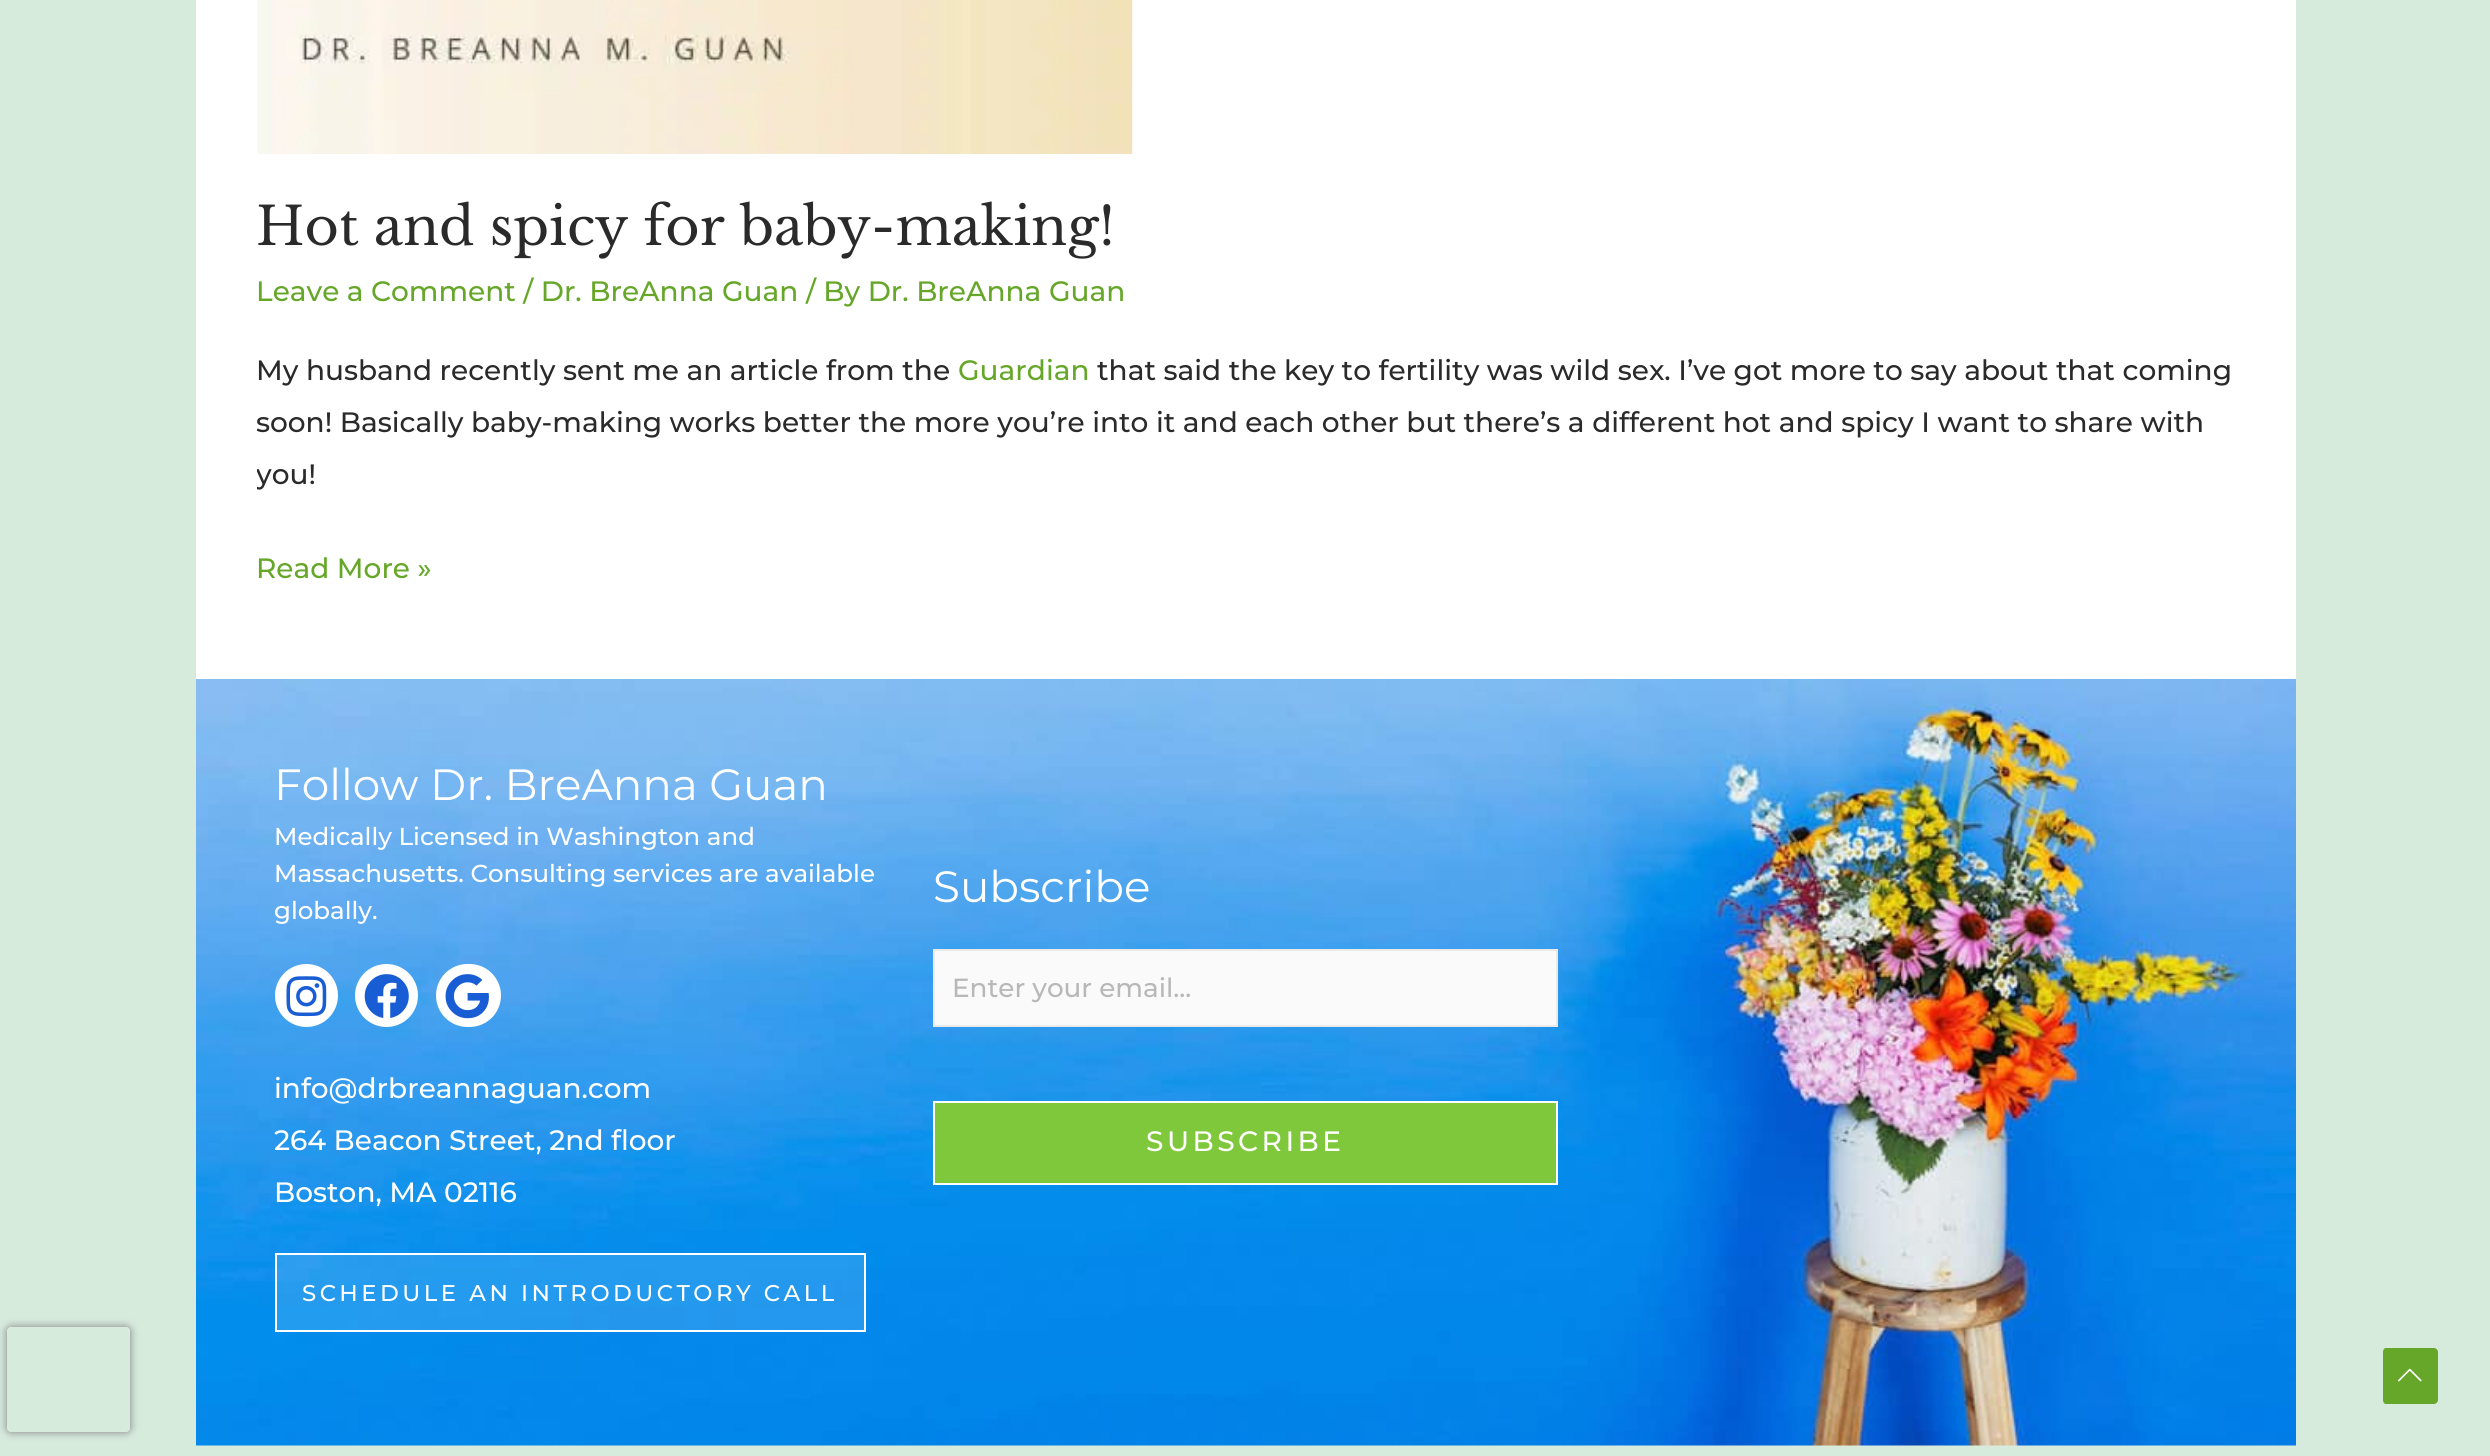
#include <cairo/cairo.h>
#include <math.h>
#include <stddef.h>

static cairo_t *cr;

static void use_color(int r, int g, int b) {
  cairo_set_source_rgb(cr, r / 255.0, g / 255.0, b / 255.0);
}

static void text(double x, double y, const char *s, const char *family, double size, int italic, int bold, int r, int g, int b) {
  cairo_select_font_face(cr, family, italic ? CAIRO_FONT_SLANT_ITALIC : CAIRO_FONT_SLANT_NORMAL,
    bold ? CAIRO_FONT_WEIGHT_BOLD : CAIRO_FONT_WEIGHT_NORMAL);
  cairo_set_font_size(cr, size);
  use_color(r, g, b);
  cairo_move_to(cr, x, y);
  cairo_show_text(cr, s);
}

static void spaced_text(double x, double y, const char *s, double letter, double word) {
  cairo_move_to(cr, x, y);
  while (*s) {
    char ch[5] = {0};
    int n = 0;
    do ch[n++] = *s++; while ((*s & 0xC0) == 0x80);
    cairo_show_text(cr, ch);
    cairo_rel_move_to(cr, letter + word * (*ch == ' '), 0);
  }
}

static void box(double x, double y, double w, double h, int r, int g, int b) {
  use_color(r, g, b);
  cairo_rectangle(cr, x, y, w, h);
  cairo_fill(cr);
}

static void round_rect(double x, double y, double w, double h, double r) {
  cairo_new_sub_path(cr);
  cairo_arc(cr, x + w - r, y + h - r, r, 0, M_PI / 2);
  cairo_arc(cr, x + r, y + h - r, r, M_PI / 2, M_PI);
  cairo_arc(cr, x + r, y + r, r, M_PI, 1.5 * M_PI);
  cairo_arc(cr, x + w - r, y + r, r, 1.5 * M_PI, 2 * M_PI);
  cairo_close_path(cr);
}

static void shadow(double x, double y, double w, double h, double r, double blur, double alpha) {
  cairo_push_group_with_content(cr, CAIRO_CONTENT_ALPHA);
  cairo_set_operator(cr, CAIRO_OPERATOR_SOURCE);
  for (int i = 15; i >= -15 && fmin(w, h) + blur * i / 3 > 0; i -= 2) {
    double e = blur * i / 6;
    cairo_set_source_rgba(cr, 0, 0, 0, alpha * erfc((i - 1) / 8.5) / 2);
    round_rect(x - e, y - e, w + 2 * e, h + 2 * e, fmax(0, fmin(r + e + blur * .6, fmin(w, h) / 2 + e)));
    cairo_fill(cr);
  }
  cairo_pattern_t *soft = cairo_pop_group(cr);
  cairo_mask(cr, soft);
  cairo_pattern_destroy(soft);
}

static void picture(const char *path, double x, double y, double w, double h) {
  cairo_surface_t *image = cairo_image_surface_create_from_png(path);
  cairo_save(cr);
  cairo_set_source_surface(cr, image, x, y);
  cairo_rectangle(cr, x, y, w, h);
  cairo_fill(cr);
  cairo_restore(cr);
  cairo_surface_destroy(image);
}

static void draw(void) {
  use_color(215, 235, 221);
  cairo_paint(cr);
  box(196, 0, 2100, 679, 255, 255, 255);
  picture("img_01.png", 257, 0, 876, 154);
  picture("img_02.png", 196, 679, 2100, 767);
  cairo_arc(cr, 306.5, 995.5, 31.5, 0, 2 * M_PI);
  cairo_fill(cr);
  picture("img_03.png", 286, 976, 41, 41);
  cairo_arc(cr, 386.5, 995.5, 31.5, 0, 2 * M_PI);
  cairo_fill(cr);
  picture("img_04.png", 364, 974, 45, 44);
  round_rect(436, 964, 65, 63, 31.5);
  cairo_fill(cr);
  picture("img_05.png", 445, 974, 44, 45);
  cairo_set_source_rgba(cr, 1, 1, 1, 0.13);
  cairo_rectangle(cr, 276, 1254, 589, 77);
  cairo_fill_preserve(cr);
  use_color(255, 255, 255);
  cairo_stroke(cr);
  use_color(250, 250, 250);
  cairo_rectangle(cr, 934, 950, 623, 76);
  cairo_fill_preserve(cr);
  use_color(234, 234, 234);
  cairo_stroke(cr);
  use_color(127, 200, 59);
  cairo_rectangle(cr, 934, 1102, 623, 82);
  cairo_fill_preserve(cr);
  use_color(255, 255, 255);
  cairo_stroke(cr);
  cairo_save(cr);
  cairo_set_fill_rule(cr, CAIRO_FILL_RULE_EVEN_ODD);
  cairo_new_path(cr);
  cairo_move_to(cr, 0, 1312);
  cairo_line_to(cr, 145, 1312);
  cairo_line_to(cr, 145, 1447);
  cairo_line_to(cr, 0, 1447);
  cairo_close_path(cr);
  cairo_move_to(cr, 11, 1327);
  cairo_line_to(cr, 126, 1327);
  cairo_curve_to(cr, 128, 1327, 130, 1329, 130, 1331);
  cairo_line_to(cr, 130, 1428);
  cairo_curve_to(cr, 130, 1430, 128, 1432, 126, 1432);
  cairo_line_to(cr, 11, 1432);
  cairo_curve_to(cr, 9, 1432, 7, 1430, 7, 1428);
  cairo_line_to(cr, 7, 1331);
  cairo_curve_to(cr, 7, 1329, 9, 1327, 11, 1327);
  cairo_close_path(cr);
  cairo_clip(cr);
  use_color(128, 128, 128);
  shadow(7, 1327, 123, 105, 4, 4.5, 1);
  cairo_restore(cr);
  use_color(102, 167, 41);
  cairo_new_path(cr);
  cairo_move_to(cr, 2434, 1404);
  cairo_line_to(cr, 2386, 1404);
  cairo_curve_to(cr, 2384, 1404, 2383, 1402, 2383, 1400);
  cairo_line_to(cr, 2383, 1352);
  cairo_curve_to(cr, 2383, 1350, 2384, 1348, 2386, 1348);
  cairo_line_to(cr, 2434, 1348);
  cairo_curve_to(cr, 2436, 1348, 2438, 1350, 2438, 1352);
  cairo_line_to(cr, 2438, 1400);
  cairo_curve_to(cr, 2438, 1402, 2436, 1404, 2434, 1404);
  cairo_close_path(cr);
  cairo_fill(cr);
  picture("img_06.png", 2398, 1368, 24, 14);
  text(256, 245, "Hot and spicy for baby-making!", "Libre Baskerville", 52.5, 0, 0, 42, 42, 42);
  text(256, 301, "Leave a Comment / Dr. BreAnna Guan / By Dr. BreAnna Guan", "Montserrat Medium", 28, 0, 0, 102, 167, 41);
  text(256, 380, "My husband recently sent me an article from the", "Montserrat Medium", 28, 0, 0, 42, 42, 42);
  text(958, 380, "Guardian", "Montserrat Medium", 28, 0, 0, 102, 167, 41);
  text(1097, 380, "that said the key to fertility was wild sex. I’ve got more to say about that coming", "Montserrat Medium", 28, 0, 0, 42, 42, 42);
  text(256, 432, "soon! Basically baby-making works better the more you’re into it and each other but there’s a different hot and spicy I want to share with", "Montserrat Medium", 28, 0, 0, 42, 42, 42);
  cairo_save(cr);
  cairo_rectangle(cr, 257, 0, 1978, 618);
  cairo_clip(cr);
  text(256, 484, "you!", "Montserrat Medium", 28, 0, 0, 42, 42, 42);
  cairo_restore(cr);
  text(256, 578, "Read More »", "Montserrat Medium", 28, 0, 0, 102, 167, 41);
  text(274, 800, "Follow Dr. BreAnna Guan", "Montserrat", 43.75, 0, 0, 255, 255, 255);
  text(274, 845, "Medically Licensed in Washington and", "Montserrat Medium", 24.5, 0, 0, 255, 255, 255);
  text(274, 882, "Massachusetts. Consulting services are available", "Montserrat Medium", 24.5, 0, 0, 255, 255, 255);
  text(274, 919, "globally.", "Montserrat Medium", 24.5, 0, 0, 255, 255, 255);
  text(274, 1098, "info@drbreannaguan.com", "Montserrat Medium", 28, 0, 0, 255, 255, 255);
  text(274, 1150, "264 Beacon Street, 2nd floor", "Montserrat Medium", 28, 0, 0, 255, 255, 255);
  text(274, 1202, "Boston, MA 02116", "Montserrat Medium", 28, 0, 0, 255, 255, 255);
  cairo_set_font_size(cr, 22.75);
  spaced_text(302, 1301, "SCHEDULE AN INTRODUCTORY CALL", 3.5, 0);
  text(933, 902, "Subscribe", "Montserrat", 43.75, 0, 0, 255, 255, 255);
  text(952, 997, "Enter your email...", "Montserrat Medium", 26.25, 0, 0, 184, 184, 184);
  cairo_set_font_size(cr, 28);
  use_color(255, 255, 255);
  spaced_text(1146, 1151, "SUBSCRIBE", 3.5, 0);
}

int main(void) {
  cairo_surface_t *surface = cairo_image_surface_create(CAIRO_FORMAT_RGB24, 2490, 1456);
  cr = cairo_create(surface);
  cairo_font_options_t *options = cairo_font_options_create();
  cairo_font_options_set_hint_metrics(options, CAIRO_HINT_METRICS_OFF);
  cairo_font_options_set_hint_style(options, CAIRO_HINT_STYLE_NONE);
  cairo_set_font_options(cr, options);
  cairo_set_miter_limit(cr, 4);
  draw();
  cairo_surface_write_to_png(surface, "out.png");
  cairo_font_options_destroy(options);
  cairo_destroy(cr);
  cairo_surface_destroy(surface);
  return 0;
}
